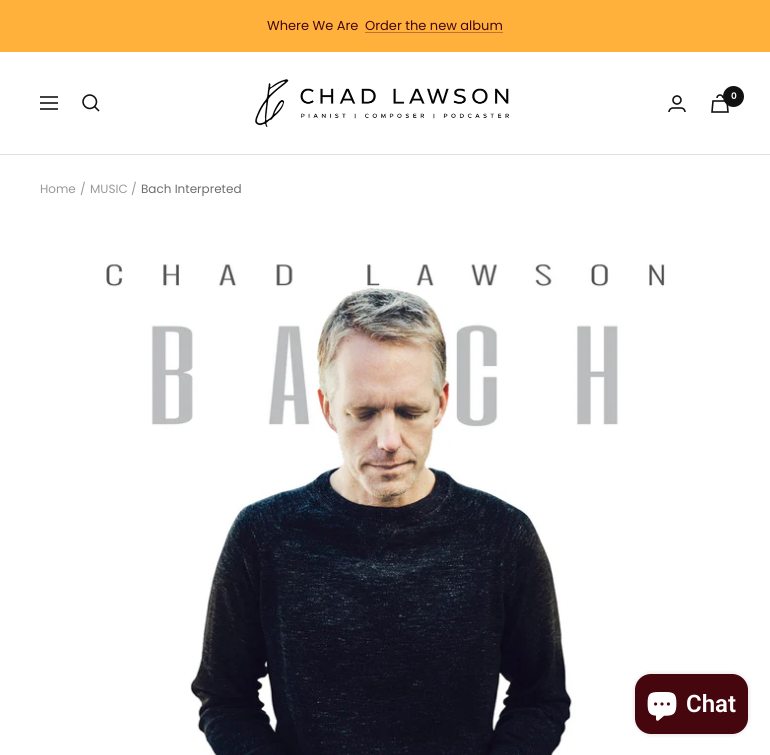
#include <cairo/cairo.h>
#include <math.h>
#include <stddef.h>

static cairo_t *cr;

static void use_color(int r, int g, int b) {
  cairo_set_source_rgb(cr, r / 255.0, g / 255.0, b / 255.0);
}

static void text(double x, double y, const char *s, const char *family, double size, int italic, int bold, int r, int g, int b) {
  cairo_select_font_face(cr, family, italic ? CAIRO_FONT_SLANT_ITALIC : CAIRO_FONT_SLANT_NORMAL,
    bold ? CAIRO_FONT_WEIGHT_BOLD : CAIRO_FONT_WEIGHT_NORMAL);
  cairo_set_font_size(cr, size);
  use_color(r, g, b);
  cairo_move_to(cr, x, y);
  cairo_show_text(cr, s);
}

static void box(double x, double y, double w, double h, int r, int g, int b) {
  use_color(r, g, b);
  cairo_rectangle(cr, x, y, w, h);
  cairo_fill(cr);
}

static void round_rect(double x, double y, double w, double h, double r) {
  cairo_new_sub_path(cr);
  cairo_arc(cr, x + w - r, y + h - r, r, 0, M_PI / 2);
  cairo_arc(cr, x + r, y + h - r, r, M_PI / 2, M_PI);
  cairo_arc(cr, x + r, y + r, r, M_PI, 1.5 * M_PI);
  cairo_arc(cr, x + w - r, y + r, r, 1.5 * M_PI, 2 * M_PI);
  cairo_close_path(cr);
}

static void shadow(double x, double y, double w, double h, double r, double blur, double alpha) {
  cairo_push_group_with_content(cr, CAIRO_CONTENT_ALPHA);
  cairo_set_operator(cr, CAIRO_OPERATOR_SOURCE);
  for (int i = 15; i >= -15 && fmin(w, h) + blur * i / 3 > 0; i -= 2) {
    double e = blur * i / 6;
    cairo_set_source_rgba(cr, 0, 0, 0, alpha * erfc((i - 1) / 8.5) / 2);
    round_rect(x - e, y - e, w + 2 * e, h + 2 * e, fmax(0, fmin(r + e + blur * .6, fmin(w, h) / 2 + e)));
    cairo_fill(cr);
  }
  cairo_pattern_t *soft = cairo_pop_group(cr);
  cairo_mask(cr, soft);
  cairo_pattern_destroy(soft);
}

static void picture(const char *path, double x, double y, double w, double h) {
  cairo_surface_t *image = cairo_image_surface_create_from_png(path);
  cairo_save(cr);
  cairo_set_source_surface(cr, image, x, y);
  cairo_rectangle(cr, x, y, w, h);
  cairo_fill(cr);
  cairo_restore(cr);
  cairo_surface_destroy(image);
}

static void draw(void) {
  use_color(255, 255, 255);
  cairo_paint(cr);
  box(0, 0, 770, 52, 255, 177, 59);
  box(365, 32, 138, 1, 190, 117, 43);
  box(0, 154, 770, 1, 224, 224, 224);
  cairo_new_path(cr);
  cairo_move_to(cr, 40, 97);
  cairo_line_to(cr, 58, 97);
  cairo_move_to(cr, 40, 109);
  cairo_line_to(cr, 58, 109);
  cairo_close_path(cr);
  cairo_move_to(cr, 40, 103);
  cairo_line_to(cr, 58, 103);
  cairo_close_path(cr);
  cairo_move_to(cr, 94.5, 106.5);
  cairo_curve_to(cr, 100.5, 100, 91.5, 91, 85, 97);
  cairo_curve_to(cr, 79, 103.5, 88, 112.5, 94.5, 106.5);
  cairo_close_path(cr);
  cairo_move_to(cr, 94.5, 106.5);
  cairo_line_to(cr, 99, 111);
  use_color(18, 17, 17);
  cairo_set_line_width(cr, 1.6);
  cairo_stroke(cr);
  picture("img_01.png", 255, 79, 254, 48);
  picture("img_02.png", 668, 95, 18, 17);
  picture("img_03.png", 711, 94, 18, 19);
  cairo_arc(cr, 733.5, 96.5, 10.5, 0, 2 * M_PI);
  cairo_fill(cr);
  picture("img_04.png", 40, 224, 690, 531);
  use_color(0, 0, 0);
  shadow(635, 674, 113, 60, 16, 2.5, 0.15);
  use_color(69, 6, 14);
  round_rect(635, 674, 113, 60, 16);
  cairo_fill(cr);
  picture("img_05.png", 647, 692, 30, 29);
  text(267, 30, "Where We Are", "Poppins", 13, 0, 0, 69, 6, 14);
  text(365, 30, "Order the new album", "Poppins", 13, 0, 0, 69, 6, 14);
  text(731, 99, "0", "Poppins SemiBold", 9, 0, 0, 255, 255, 255);
  text(40, 193, "Home", "Poppins", 12, 0, 0, 153, 153, 153);
  text(80, 193, "/", "Poppins", 12, 0, 0, 153, 153, 153);
  text(90, 193, "MUSIC", "Poppins", 12, 0, 0, 153, 153, 153);
  text(131, 193, "/", "Poppins", 12, 0, 0, 153, 153, 153);
  text(141, 193, "Bach Interpreted", "Poppins", 12, 0, 0, 109, 109, 109);
  text(686, 712, "Chat", "Roboto SemiBold", 24, 0, 0, 255, 255, 255);
}

int main(void) {
  cairo_surface_t *surface = cairo_image_surface_create(CAIRO_FORMAT_RGB24, 770, 755);
  cr = cairo_create(surface);
  cairo_font_options_t *options = cairo_font_options_create();
  cairo_font_options_set_hint_metrics(options, CAIRO_HINT_METRICS_OFF);
  cairo_font_options_set_hint_style(options, CAIRO_HINT_STYLE_NONE);
  cairo_set_font_options(cr, options);
  cairo_set_miter_limit(cr, 4);
  draw();
  cairo_surface_write_to_png(surface, "out.png");
  cairo_font_options_destroy(options);
  cairo_destroy(cr);
  cairo_surface_destroy(surface);
  return 0;
}
